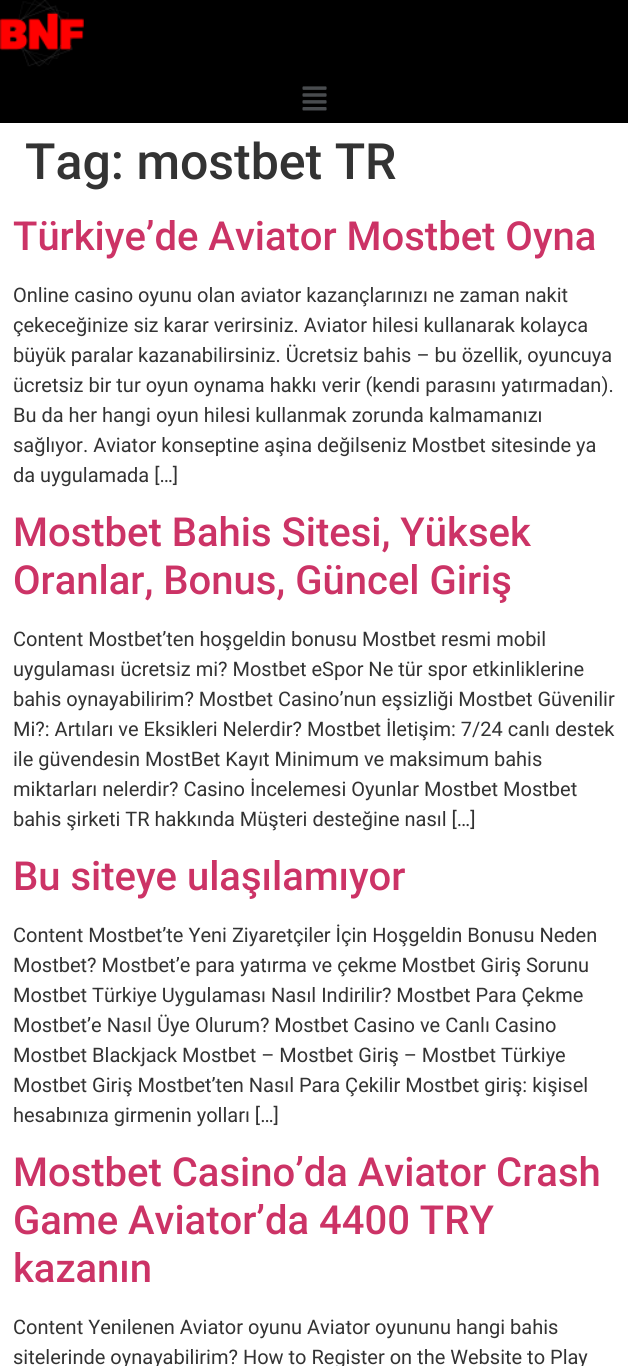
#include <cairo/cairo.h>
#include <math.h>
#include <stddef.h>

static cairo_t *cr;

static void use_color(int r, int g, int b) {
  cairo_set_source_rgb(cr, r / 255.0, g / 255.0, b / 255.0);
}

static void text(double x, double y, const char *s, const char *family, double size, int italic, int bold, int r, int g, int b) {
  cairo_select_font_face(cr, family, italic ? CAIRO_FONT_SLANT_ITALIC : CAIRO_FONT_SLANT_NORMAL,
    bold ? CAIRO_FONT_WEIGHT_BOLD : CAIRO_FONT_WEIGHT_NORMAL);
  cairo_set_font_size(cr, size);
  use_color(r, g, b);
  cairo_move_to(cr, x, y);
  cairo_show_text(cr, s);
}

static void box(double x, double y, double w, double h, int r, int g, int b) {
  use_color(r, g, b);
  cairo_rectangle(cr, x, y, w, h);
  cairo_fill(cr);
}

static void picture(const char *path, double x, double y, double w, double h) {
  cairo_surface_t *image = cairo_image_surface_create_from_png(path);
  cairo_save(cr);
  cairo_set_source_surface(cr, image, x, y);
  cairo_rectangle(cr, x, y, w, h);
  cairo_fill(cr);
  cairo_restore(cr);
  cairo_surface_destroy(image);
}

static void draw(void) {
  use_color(255, 255, 255);
  cairo_paint(cr);
  box(0, 0, 628, 123, 0, 0, 0);
  picture("img_01.png", 0, 0, 84, 67);
  picture("img_02.png", 302, 86, 25, 25);
  text(25, 179, "Tag: mostbet TR", "Roboto Medium", 50, 0, 0, 51, 51, 51);
  text(13, 250, "Türkiye’de Aviator Mostbet Oyna", "Roboto Medium", 40, 0, 0, 204, 51, 102);
  text(13, 302, "Online casino oyunu olan aviator kazançlarınızı ne zaman nakit", "Roboto", 20, 0, 0, 51, 51, 51);
  text(13, 332, "çekeceğinize siz karar verirsiniz. Aviator hilesi kullanarak kolayca", "Roboto", 20, 0, 0, 51, 51, 51);
  text(13, 362, "büyük paralar kazanabilirsiniz. Ücretsiz bahis – bu özellik, oyuncuya", "Roboto", 20, 0, 0, 51, 51, 51);
  text(13, 392, "ücretsiz bir tur oyun oynama hakkı verir (kendi parasını yatırmadan).", "Roboto", 20, 0, 0, 51, 51, 51);
  text(13, 422, "Bu da her hangi oyun hilesi kullanmak zorunda kalmamanızı", "Roboto", 20, 0, 0, 51, 51, 51);
  text(13, 452, "sağlıyor. Aviator konseptine aşina değilseniz Mostbet sitesinde ya", "Roboto", 20, 0, 0, 51, 51, 51);
  text(13, 482, "da uygulamada […]", "Roboto", 20, 0, 0, 51, 51, 51);
  text(13, 546, "Mostbet Bahis Sitesi, Yüksek", "Roboto Medium", 40, 0, 0, 204, 51, 102);
  text(13, 594, "Oranlar, Bonus, Güncel Giriş", "Roboto Medium", 40, 0, 0, 204, 51, 102);
  text(13, 646, "Content Mostbet’ten hoşgeldin bonusu Mostbet resmi mobil", "Roboto", 20, 0, 0, 51, 51, 51);
  text(13, 676, "uygulaması ücretsiz mi? Mostbet eSpor Ne tür spor etkinliklerine", "Roboto", 20, 0, 0, 51, 51, 51);
  text(13, 706, "bahis oynayabilirim? Mostbet Casino’nun eşsizliği Mostbet Güvenilir", "Roboto", 20, 0, 0, 51, 51, 51);
  text(13, 736, "Mi?: Artıları ve Eksikleri Nelerdir? Mostbet İletişim: 7/24 canlı destek", "Roboto", 20, 0, 0, 51, 51, 51);
  text(13, 766, "ile güvendesin MostBet Kayıt Minimum ve maksimum bahis", "Roboto", 20, 0, 0, 51, 51, 51);
  text(13, 796, "miktarları nelerdir? Casino İncelemesi Oyunlar Mostbet Mostbet", "Roboto", 20, 0, 0, 51, 51, 51);
  text(13, 826, "bahis şirketi TR hakkında Müşteri desteğine nasıl […]", "Roboto", 20, 0, 0, 51, 51, 51);
  text(13, 890, "Bu siteye ulaşılamıyor", "Roboto Medium", 40, 0, 0, 204, 51, 102);
  text(13, 942, "Content Mostbet’te Yeni Ziyaretçiler İçin Hoşgeldin Bonusu Neden", "Roboto", 20, 0, 0, 51, 51, 51);
  text(13, 972, "Mostbet? Mostbet’e para yatırma ve çekme Mostbet Giriş Sorunu", "Roboto", 20, 0, 0, 51, 51, 51);
  text(13, 1002, "Mostbet Türkiye Uygulaması Nasıl Indirilir? Mostbet Para Çekme", "Roboto", 20, 0, 0, 51, 51, 51);
  text(13, 1032, "Mostbet’e Nasıl Üye Olurum? Mostbet Casino ve Canlı Casino", "Roboto", 20, 0, 0, 51, 51, 51);
  text(13, 1062, "Mostbet Blackjack Mostbet – Mostbet Giriş – Mostbet Türkiye", "Roboto", 20, 0, 0, 51, 51, 51);
  text(13, 1092, "Mostbet Giriş Mostbet’ten Nasıl Para Çekilir Mostbet giriş: kişisel", "Roboto", 20, 0, 0, 51, 51, 51);
  text(13, 1122, "hesabınıza girmenin yolları […]", "Roboto", 20, 0, 0, 51, 51, 51);
  text(13, 1186, "Mostbet Casino’da Aviator Crash", "Roboto Medium", 40, 0, 0, 204, 51, 102);
  text(13, 1234, "Game Aviator’da 4400 TRY", "Roboto Medium", 40, 0, 0, 204, 51, 102);
  text(13, 1282, "kazanın", "Roboto Medium", 40, 0, 0, 204, 51, 102);
  text(13, 1334, "Content Yenilenen Aviator oyunu Aviator oyununu hangi bahis", "Roboto", 20, 0, 0, 51, 51, 51);
  text(13, 1364, "sitelerinde oynayabilirim? How to Register on the Website to Play", "Roboto", 20, 0, 0, 51, 51, 51);
}

int main(void) {
  cairo_surface_t *surface = cairo_image_surface_create(CAIRO_FORMAT_RGB24, 628, 1366);
  cr = cairo_create(surface);
  cairo_font_options_t *options = cairo_font_options_create();
  cairo_font_options_set_hint_metrics(options, CAIRO_HINT_METRICS_OFF);
  cairo_font_options_set_hint_style(options, CAIRO_HINT_STYLE_NONE);
  cairo_set_font_options(cr, options);
  cairo_set_miter_limit(cr, 4);
  draw();
  cairo_surface_write_to_png(surface, "out.png");
  cairo_font_options_destroy(options);
  cairo_destroy(cr);
  cairo_surface_destroy(surface);
  return 0;
}
